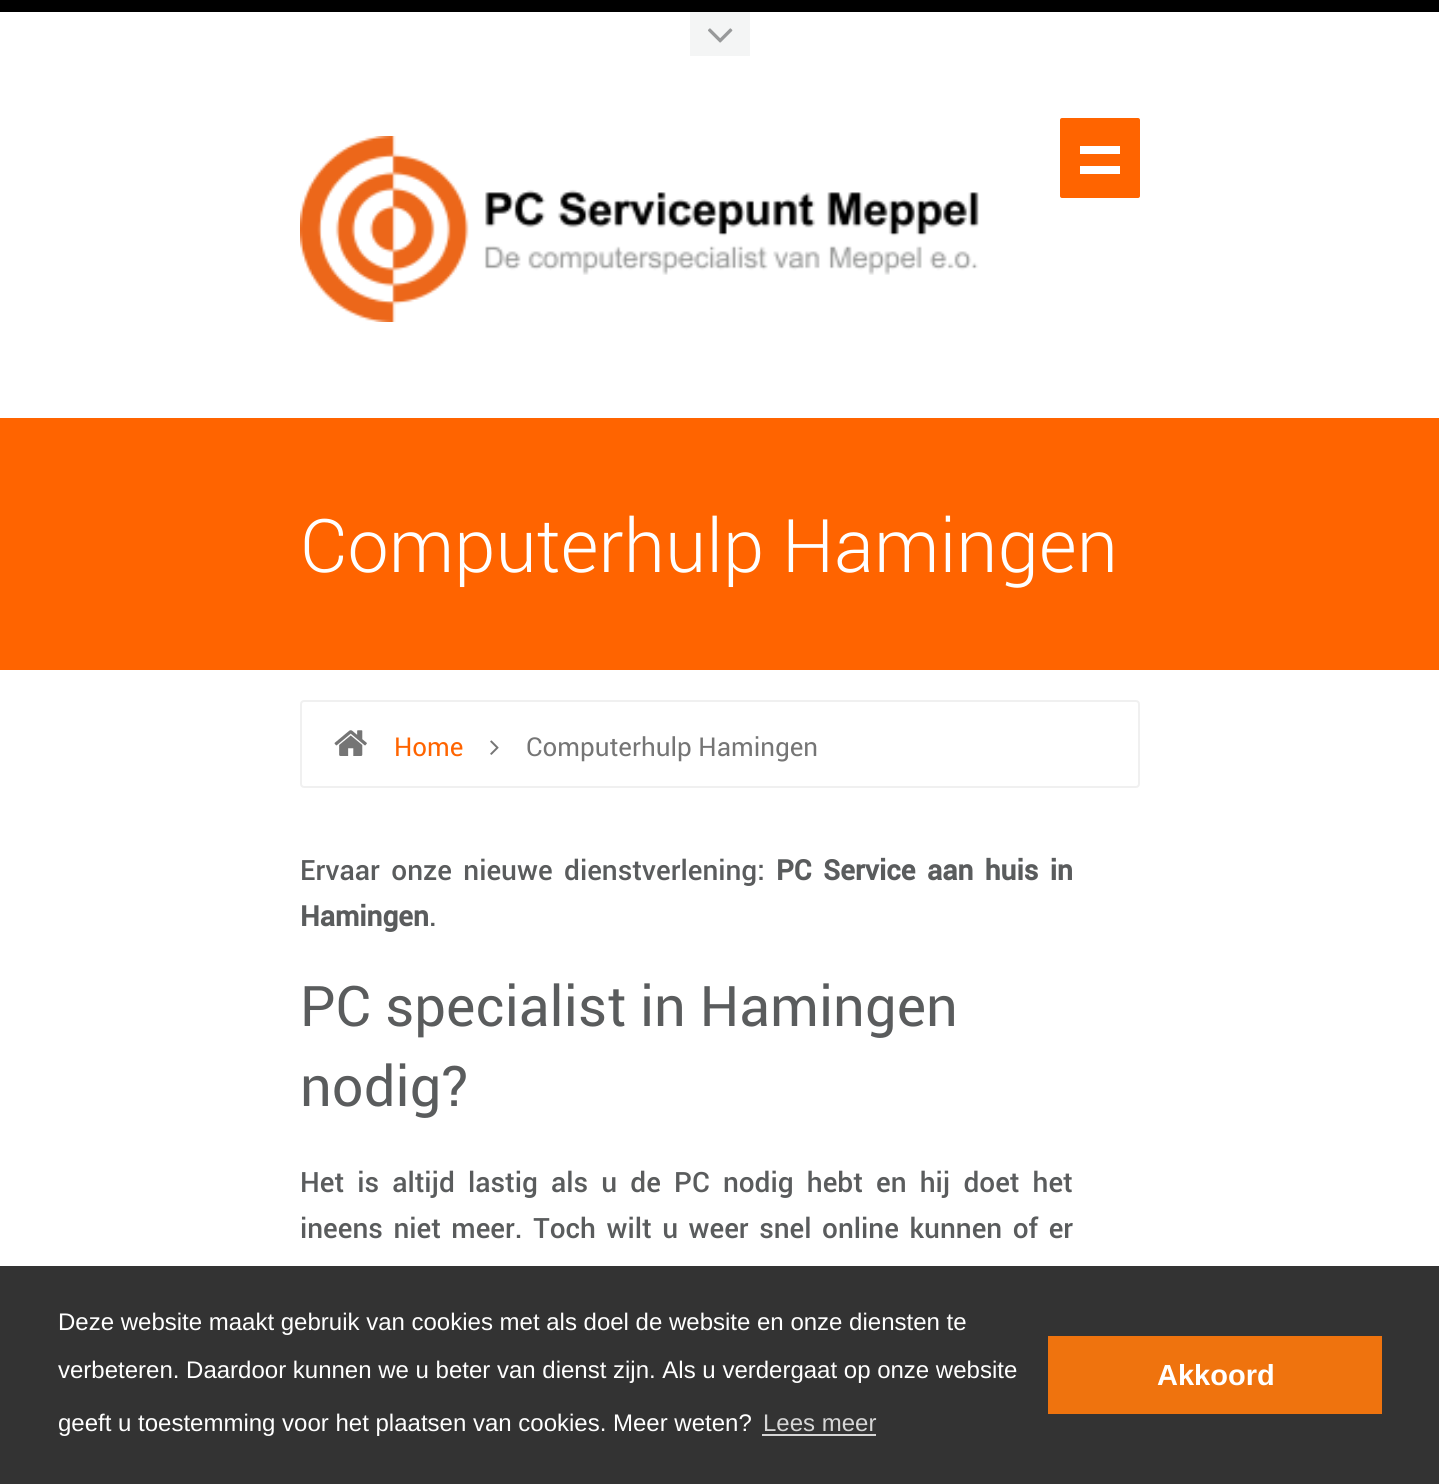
#include <cairo/cairo.h>
#include <math.h>
#include <stddef.h>

static cairo_t *cr;

static void use_color(int r, int g, int b) {
  cairo_set_source_rgb(cr, r / 255.0, g / 255.0, b / 255.0);
}

static void text(double x, double y, const char *s, const char *family, double size, int italic, int bold, int r, int g, int b) {
  cairo_select_font_face(cr, family, italic ? CAIRO_FONT_SLANT_ITALIC : CAIRO_FONT_SLANT_NORMAL,
    bold ? CAIRO_FONT_WEIGHT_BOLD : CAIRO_FONT_WEIGHT_NORMAL);
  cairo_set_font_size(cr, size);
  use_color(r, g, b);
  cairo_move_to(cr, x, y);
  cairo_show_text(cr, s);
}

static void spaced_text(double x, double y, const char *s, double letter, double word) {
  cairo_move_to(cr, x, y);
  while (*s) {
    char ch[5] = {0};
    int n = 0;
    do ch[n++] = *s++; while ((*s & 0xC0) == 0x80);
    cairo_show_text(cr, ch);
    cairo_rel_move_to(cr, letter + word * (*ch == ' '), 0);
  }
}

static void box(double x, double y, double w, double h, int r, int g, int b) {
  use_color(r, g, b);
  cairo_rectangle(cr, x, y, w, h);
  cairo_fill(cr);
}

static void round_rect(double x, double y, double w, double h, double r) {
  cairo_new_sub_path(cr);
  cairo_arc(cr, x + w - r, y + h - r, r, 0, M_PI / 2);
  cairo_arc(cr, x + r, y + h - r, r, M_PI / 2, M_PI);
  cairo_arc(cr, x + r, y + r, r, M_PI, 1.5 * M_PI);
  cairo_arc(cr, x + w - r, y + r, r, 1.5 * M_PI, 2 * M_PI);
  cairo_close_path(cr);
}

static void picture(const char *path, double x, double y, double w, double h) {
  cairo_surface_t *image = cairo_image_surface_create_from_png(path);
  cairo_save(cr);
  cairo_set_source_surface(cr, image, x, y);
  cairo_rectangle(cr, x, y, w, h);
  cairo_fill(cr);
  cairo_restore(cr);
  cairo_surface_destroy(image);
}

static void draw(void) {
  use_color(255, 255, 255);
  cairo_paint(cr);
  box(0, 0, 1439, 12, 0, 0, 0);
  box(690, 12, 60, 44, 244, 245, 245);
  picture("img_01.png", 708, 28, 25, 15);
  picture("img_02.png", 300, 136, 679, 186);
  use_color(255, 100, 0);
  round_rect(1060, 118, 80, 80, 2);
  cairo_fill(cr);
  box(1080, 146, 40, 8, 255, 255, 255);
  box(1080, 166, 40, 8, 255, 255, 255);
  box(0, 418, 1439, 252, 255, 100, 0);
  round_rect(301, 701, 838, 86, 3);
  use_color(240, 240, 240);
  cairo_stroke(cr);
  picture("img_03.png", 334, 730, 33, 26);
  picture("img_04.png", 490, 740, 9, 15);
  box(0, 1266, 1439, 218, 51, 51, 51);
  box(762, 1434, 114, 2, 214, 214, 214);
  box(1048, 1336, 334, 78, 239, 115, 14);
  text(300, 572, "Computerhulp Hamingen", "Roboto Light", 74, 0, 0, 255, 255, 255);
  text(394, 756, "Home", "Roboto", 26, 0, 0, 255, 100, 0);
  text(526, 756, "Computerhulp Hamingen", "Roboto", 26, 0, 0, 117, 117, 117);
  cairo_select_font_face(cr, "Roboto Medium", CAIRO_FONT_SLANT_NORMAL, CAIRO_FONT_WEIGHT_NORMAL);
  cairo_set_font_size(cr, 28);
  use_color(90, 92, 93);
  spaced_text(300, 880, "Ervaar onze nieuwe dienstverlening:", 0, 4.5);
  cairo_select_font_face(cr, "Roboto", CAIRO_FONT_SLANT_NORMAL, CAIRO_FONT_WEIGHT_BOLD);
  spaced_text(776, 880, "PC Service aan huis in", 0, 4.5);
  text(300, 926, "Hamingen", "Roboto", 28, 0, 1, 90, 92, 93);
  text(429, 926, ".", "Roboto Medium", 28, 0, 0, 90, 92, 93);
  text(300, 1026, "PC specialist in Hamingen", "Roboto", 56, 0, 0, 90, 92, 93);
  text(300, 1106, "nodig?", "Roboto", 56, 0, 0, 90, 92, 93);
  cairo_select_font_face(cr, "Roboto Medium", CAIRO_FONT_SLANT_NORMAL, CAIRO_FONT_WEIGHT_NORMAL);
  cairo_set_font_size(cr, 28);
  spaced_text(300, 1192, "Het is altijd lastig als u de PC nodig hebt en hij doet het", 0, 6.25);
  spaced_text(300, 1238, "ineens niet meer. Toch wilt u weer snel online kunnen of er", 0, 3.6);
  text(58, 1330, "Deze website maakt gebruik van cookies met als doel de website en onze diensten te", "Liberation Sans", 24, 0, 0, 255, 255, 255);
  text(58, 1378, "verbeteren. Daardoor kunnen we u beter van dienst zijn. Als u verdergaat op onze website", "Liberation Sans", 24, 0, 0, 255, 255, 255);
  text(58, 1431, "geeft u toestemming voor het plaatsen van cookies. Meer weten?", "Liberation Sans", 24, 0, 0, 255, 255, 255);
  text(763, 1431, "Lees meer", "Liberation Sans", 24, 0, 0, 214, 214, 214);
  text(1157, 1385, "Akkoord", "Liberation Sans", 29, 0, 1, 255, 255, 255);
}

int main(void) {
  cairo_surface_t *surface = cairo_image_surface_create(CAIRO_FORMAT_RGB24, 1439, 1484);
  cr = cairo_create(surface);
  cairo_font_options_t *options = cairo_font_options_create();
  cairo_font_options_set_hint_metrics(options, CAIRO_HINT_METRICS_OFF);
  cairo_font_options_set_hint_style(options, CAIRO_HINT_STYLE_NONE);
  cairo_set_font_options(cr, options);
  cairo_set_miter_limit(cr, 4);
  draw();
  cairo_surface_write_to_png(surface, "out.png");
  cairo_font_options_destroy(options);
  cairo_destroy(cr);
  cairo_surface_destroy(surface);
  return 0;
}
